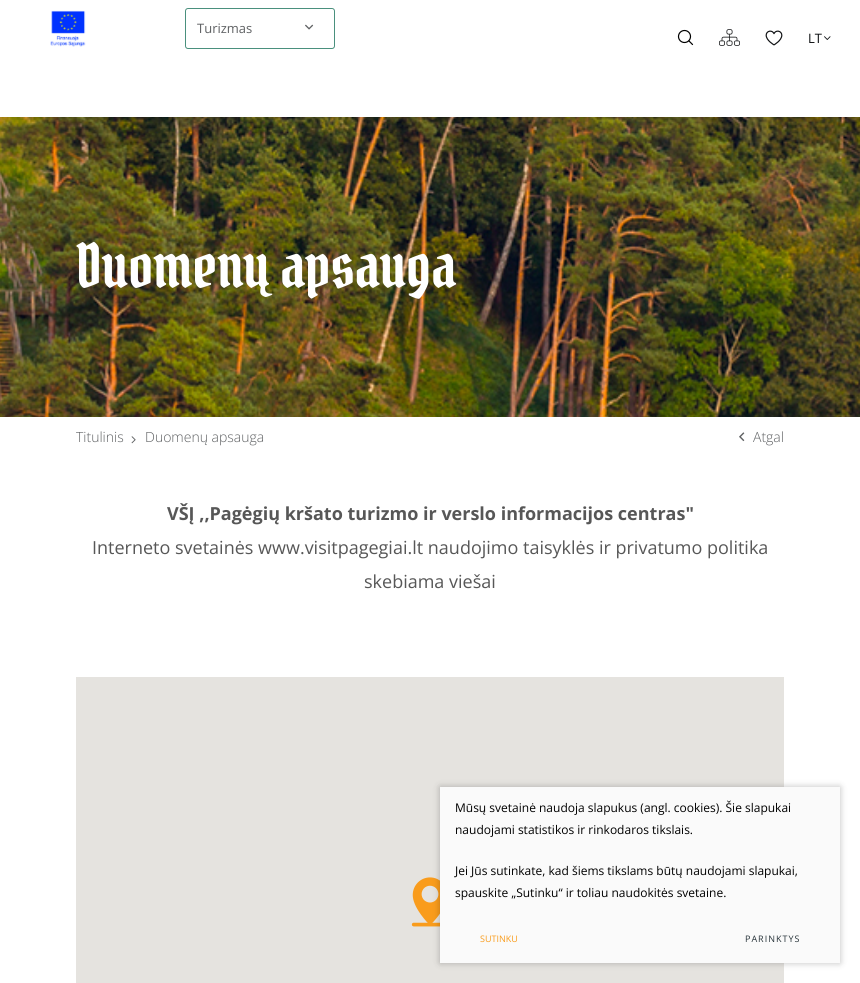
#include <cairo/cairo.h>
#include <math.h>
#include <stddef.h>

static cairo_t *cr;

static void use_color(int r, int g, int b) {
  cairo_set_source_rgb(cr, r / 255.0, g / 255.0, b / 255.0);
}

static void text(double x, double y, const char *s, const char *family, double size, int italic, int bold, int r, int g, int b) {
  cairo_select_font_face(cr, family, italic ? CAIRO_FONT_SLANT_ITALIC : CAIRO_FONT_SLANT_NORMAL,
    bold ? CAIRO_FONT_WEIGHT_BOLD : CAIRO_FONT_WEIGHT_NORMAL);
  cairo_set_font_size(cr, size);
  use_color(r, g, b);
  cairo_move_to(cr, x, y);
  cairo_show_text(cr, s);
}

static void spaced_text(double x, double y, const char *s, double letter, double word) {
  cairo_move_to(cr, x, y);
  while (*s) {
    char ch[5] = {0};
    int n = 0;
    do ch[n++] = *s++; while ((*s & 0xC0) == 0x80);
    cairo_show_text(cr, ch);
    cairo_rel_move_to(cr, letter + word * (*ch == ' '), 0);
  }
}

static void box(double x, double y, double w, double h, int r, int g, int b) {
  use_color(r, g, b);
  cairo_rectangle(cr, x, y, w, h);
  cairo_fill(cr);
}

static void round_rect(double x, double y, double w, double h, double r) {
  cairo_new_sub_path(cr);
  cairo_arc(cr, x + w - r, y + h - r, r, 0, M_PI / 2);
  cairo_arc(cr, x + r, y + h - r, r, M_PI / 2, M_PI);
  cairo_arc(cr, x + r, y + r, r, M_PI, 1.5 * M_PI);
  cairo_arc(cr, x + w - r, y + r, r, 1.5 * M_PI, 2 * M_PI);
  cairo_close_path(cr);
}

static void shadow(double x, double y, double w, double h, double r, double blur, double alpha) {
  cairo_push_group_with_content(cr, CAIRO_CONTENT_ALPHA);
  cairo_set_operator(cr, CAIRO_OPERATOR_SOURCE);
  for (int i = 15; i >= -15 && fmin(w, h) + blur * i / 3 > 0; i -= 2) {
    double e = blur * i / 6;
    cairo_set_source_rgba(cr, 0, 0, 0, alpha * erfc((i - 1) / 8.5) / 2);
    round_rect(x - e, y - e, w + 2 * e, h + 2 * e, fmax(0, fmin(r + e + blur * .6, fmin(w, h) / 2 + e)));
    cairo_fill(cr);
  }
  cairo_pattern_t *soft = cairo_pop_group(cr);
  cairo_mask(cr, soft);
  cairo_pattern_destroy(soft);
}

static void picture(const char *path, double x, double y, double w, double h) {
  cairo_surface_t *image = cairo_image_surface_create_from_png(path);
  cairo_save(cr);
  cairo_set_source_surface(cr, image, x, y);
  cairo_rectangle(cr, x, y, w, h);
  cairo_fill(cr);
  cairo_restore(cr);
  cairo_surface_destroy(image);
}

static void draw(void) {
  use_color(255, 255, 255);
  cairo_paint(cr);
  picture("img_06.png", 0, 117, 860, 300);
  cairo_save(cr);
  cairo_rectangle(cr, 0, 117, 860, 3);
  cairo_clip(cr);
  use_color(0, 0, 0);
  shadow(0, 0, 860, 117, 0, 2.5, 0.15);
  cairo_restore(cr);
  picture("img_01.png", 50, 10, 36, 37);
  round_rect(185.5, 8.5, 149, 40, 2.5);
  use_color(74, 144, 125);
  cairo_set_line_width(cr, 1);
  cairo_stroke(cr);
  picture("img_02.png", 305, 24, 9, 6);
  cairo_arc(cr, 684.5, 36.5, 6, 0, 2 * M_PI);
  use_color(0, 0, 0);
  cairo_set_line_width(cr, 1.2);
  cairo_stroke(cr);
  cairo_new_path(cr);
  cairo_move_to(cr, 689, 41);
  cairo_line_to(cr, 692.5, 44.5);
  cairo_set_line_cap(cr, CAIRO_LINE_CAP_ROUND);
  cairo_set_line_join(cr, CAIRO_LINE_JOIN_ROUND);
  cairo_stroke(cr);
  picture("img_03.png", 719, 29, 21, 17);
  picture("img_04.png", 765, 30, 18, 16);
  picture("img_05.png", 824, 36, 7, 4);
  picture("img_07.png", 131, 436, 5, 8);
  picture("img_08.png", 739, 432, 6, 10);
  box(76, 677, 708, 306, 229, 227, 223);
  picture("img_09.png", 411, 877, 29, 50);
  use_color(0, 0, 0);
  shadow(440, 787, 400, 176, 0, 3.5, 0.25);
  box(440, 787, 400, 176, 250, 250, 250);
  text(197, 33, "Turizmas", "Open Sans", 13, 0, 0, 95, 97, 99);
  text(808, 43, "LT", "Open Sans", 13, 0, 0, 15, 17, 19);
  text(76, 288, "Duomenų apsauga", "Pirata One", 60, 0, 0, 255, 255, 255);
  text(76, 442, "Titulinis", "Open Sans Light", 14, 0, 0, 95, 97, 99);
  text(145, 442, "Duomenų apsauga", "Open Sans Light", 14, 0, 0, 95, 97, 99);
  text(753, 442, "Atgal", "Open Sans Light", 14, 0, 0, 95, 97, 99);
  text(167, 520, "VŠĮ ,,Pagėgių kršato turizmo ir verslo informacijos centras\"", "Open Sans", 18, 0, 1, 87, 87, 87);
  text(92, 554, "Interneto svetainės www.visitpagegiai.lt naudojimo taisyklės ir privatumo politika", "Open Sans", 18, 0, 0, 87, 87, 87);
  text(364, 588, "skebiama viešai", "Open Sans", 18, 0, 0, 87, 87, 87);
  text(455, 812, "Mūsų svetainė naudoja slapukus (angl. cookies). Šie slapukai", "Open Sans", 12, 0, 0, 0, 0, 0);
  text(455, 834, "naudojami statistikos ir rinkodaros tikslais.", "Open Sans", 12, 0, 0, 0, 0, 0);
  text(455, 875, "Jei Jūs sutinkate, kad šiems tikslams būtų naudojami slapukai,", "Open Sans", 12, 0, 0, 0, 0, 0);
  text(455, 897, "spauskite „Sutinku“ ir toliau naudokitės svetaine.", "Open Sans", 12, 0, 0, 0, 0, 0);
  text(480, 942, "SUTINKU", "Open Sans", 9, 0, 0, 249, 156, 28);
  use_color(38, 50, 56);
  spaced_text(745, 942, "PARINKTYS", 1, 0);
}

int main(void) {
  cairo_surface_t *surface = cairo_image_surface_create(CAIRO_FORMAT_RGB24, 860, 983);
  cr = cairo_create(surface);
  cairo_font_options_t *options = cairo_font_options_create();
  cairo_font_options_set_hint_metrics(options, CAIRO_HINT_METRICS_OFF);
  cairo_font_options_set_hint_style(options, CAIRO_HINT_STYLE_NONE);
  cairo_set_font_options(cr, options);
  cairo_set_miter_limit(cr, 4);
  draw();
  cairo_surface_write_to_png(surface, "out.png");
  cairo_font_options_destroy(options);
  cairo_destroy(cr);
  cairo_surface_destroy(surface);
  return 0;
}
